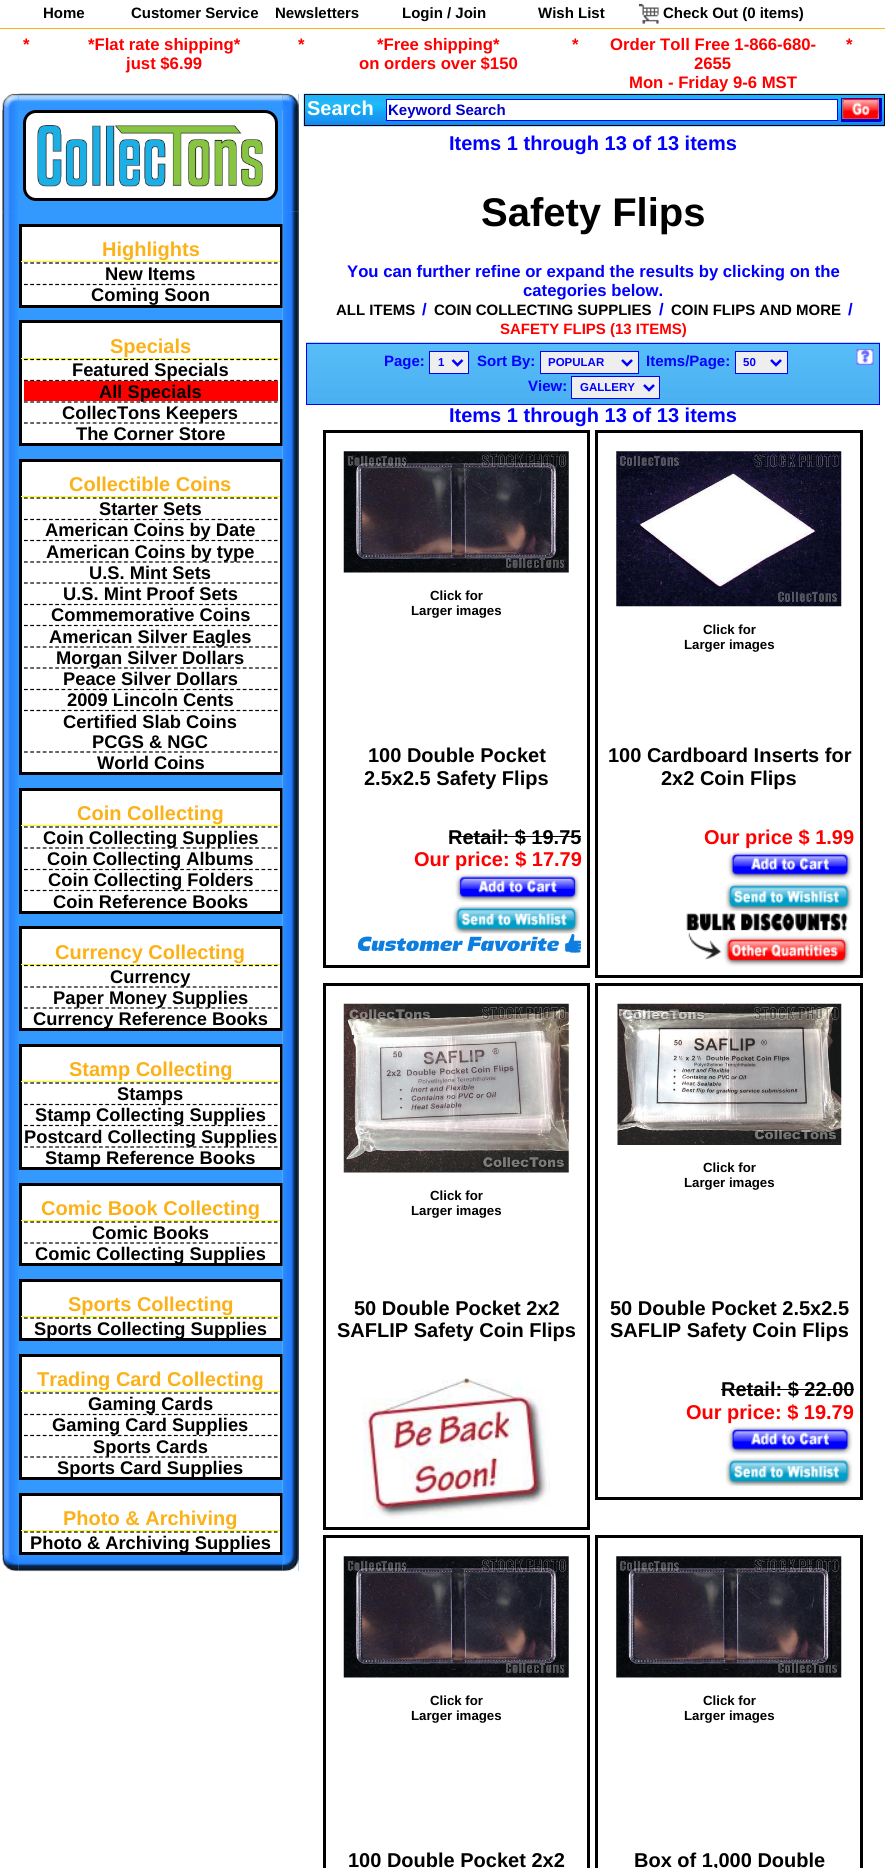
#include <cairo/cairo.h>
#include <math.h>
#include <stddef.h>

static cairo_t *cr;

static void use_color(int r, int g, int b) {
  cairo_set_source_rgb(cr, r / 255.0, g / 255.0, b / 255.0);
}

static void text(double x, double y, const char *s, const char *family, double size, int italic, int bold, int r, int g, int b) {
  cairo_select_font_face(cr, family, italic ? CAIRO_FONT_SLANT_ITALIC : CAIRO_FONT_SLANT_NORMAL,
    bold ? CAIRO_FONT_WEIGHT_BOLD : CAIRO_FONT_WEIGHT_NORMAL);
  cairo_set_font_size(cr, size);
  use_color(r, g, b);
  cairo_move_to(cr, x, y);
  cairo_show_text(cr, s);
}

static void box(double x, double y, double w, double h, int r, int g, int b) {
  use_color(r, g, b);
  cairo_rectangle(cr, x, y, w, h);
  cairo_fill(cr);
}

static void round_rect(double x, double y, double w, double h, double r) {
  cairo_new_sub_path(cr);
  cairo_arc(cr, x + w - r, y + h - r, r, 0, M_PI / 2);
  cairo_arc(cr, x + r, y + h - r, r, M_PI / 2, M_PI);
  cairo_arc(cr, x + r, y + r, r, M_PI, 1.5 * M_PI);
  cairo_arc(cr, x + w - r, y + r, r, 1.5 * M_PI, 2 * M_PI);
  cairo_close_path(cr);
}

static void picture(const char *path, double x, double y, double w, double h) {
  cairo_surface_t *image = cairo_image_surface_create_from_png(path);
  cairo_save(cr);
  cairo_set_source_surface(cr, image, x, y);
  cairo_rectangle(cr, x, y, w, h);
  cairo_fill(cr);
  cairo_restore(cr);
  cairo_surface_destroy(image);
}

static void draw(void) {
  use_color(255, 255, 255);
  cairo_paint(cr);
  picture("img_01.png", 638, 3, 21, 21);
  box(0, 28, 885, 1, 251, 177, 24);
  box(18, 94, 281, 1477, 51, 153, 255);
  picture("img_02.png", 2, 93, 17, 17);
  picture("img_03.png", 18, 93, 265, 17);
  picture("img_04.png", 282, 93, 17, 17);
  picture("img_05.png", 2, 110, 16, 102);
  use_color(255, 255, 255);
  round_rect(24.5, 111.5, 252, 88, 11.5);
  cairo_fill_preserve(cr);
  use_color(0, 0, 0);
  cairo_set_line_width(cr, 3);
  cairo_stroke(cr);
  picture("img_06.png", 37, 125, 226, 62);
  picture("img_07.png", 282, 110, 17, 101);
  box(3, 211, 15, 1344, 51, 153, 255);
  picture("img_08.png", 2, 211, 16, 1344);
  use_color(255, 255, 255);
  cairo_rectangle(cr, 20.5, 225.5, 261, 81);
  cairo_fill_preserve(cr);
  use_color(0, 0, 0);
  cairo_stroke(cr);
  box(21, 261, 259, 1, 255, 255, 0);
  cairo_new_path(cr);
  cairo_move_to(cr, 24, 263);
  cairo_line_to(cr, 277.5, 263);
  use_color(0, 0, 0);
  cairo_set_line_width(cr, 1.2);
  cairo_set_dash(cr, (double[]){3.75, 2.5}, 2, 0);
  cairo_stroke(cr);
  cairo_new_path(cr);
  cairo_move_to(cr, 24, 284.5);
  cairo_line_to(cr, 277.5, 284.5);
  cairo_stroke(cr);
  use_color(255, 255, 255);
  cairo_rectangle(cr, 20.5, 321.5, 261, 123);
  cairo_fill_preserve(cr);
  use_color(0, 0, 0);
  cairo_set_line_width(cr, 3);
  cairo_set_dash(cr, NULL, 0, 0);
  cairo_stroke(cr);
  box(21, 358, 259, 1, 255, 255, 0);
  cairo_new_path(cr);
  cairo_move_to(cr, 24, 359.5);
  cairo_line_to(cr, 277.5, 359.5);
  use_color(0, 0, 0);
  cairo_set_line_width(cr, 1.2);
  cairo_set_dash(cr, (double[]){3.75, 2.5}, 2, 0);
  cairo_stroke(cr);
  cairo_new_path(cr);
  cairo_move_to(cr, 24, 380.5);
  cairo_line_to(cr, 277.5, 380.5);
  cairo_stroke(cr);
  box(24, 381, 254, 20, 255, 0, 0);
  cairo_new_path(cr);
  cairo_move_to(cr, 24, 402);
  cairo_line_to(cr, 277.5, 402);
  use_color(0, 0, 0);
  cairo_stroke(cr);
  cairo_new_path(cr);
  cairo_move_to(cr, 24, 423);
  cairo_line_to(cr, 277.5, 423);
  cairo_stroke(cr);
  use_color(255, 255, 255);
  cairo_rectangle(cr, 20.5, 460.5, 261, 313);
  cairo_fill_preserve(cr);
  use_color(0, 0, 0);
  cairo_set_line_width(cr, 3);
  cairo_set_dash(cr, NULL, 0, 0);
  cairo_stroke(cr);
  box(21, 496, 259, 1, 255, 255, 0);
  cairo_new_path(cr);
  cairo_move_to(cr, 24, 498);
  cairo_line_to(cr, 277.5, 498);
  use_color(0, 0, 0);
  cairo_set_line_width(cr, 1.2);
  cairo_set_dash(cr, (double[]){3.75, 2.5}, 2, 0);
  cairo_stroke(cr);
  cairo_new_path(cr);
  cairo_move_to(cr, 24, 519.5);
  cairo_line_to(cr, 277.5, 519.5);
  cairo_stroke(cr);
  cairo_new_path(cr);
  cairo_move_to(cr, 24, 540.5);
  cairo_line_to(cr, 277.5, 540.5);
  cairo_stroke(cr);
  cairo_new_path(cr);
  cairo_move_to(cr, 24, 562);
  cairo_line_to(cr, 277.5, 562);
  cairo_stroke(cr);
  cairo_new_path(cr);
  cairo_move_to(cr, 24, 583);
  cairo_line_to(cr, 277.5, 583);
  cairo_stroke(cr);
  cairo_new_path(cr);
  cairo_move_to(cr, 24, 604.5);
  cairo_line_to(cr, 277.5, 604.5);
  cairo_stroke(cr);
  cairo_new_path(cr);
  cairo_move_to(cr, 24, 625.5);
  cairo_line_to(cr, 277.5, 625.5);
  cairo_stroke(cr);
  cairo_new_path(cr);
  cairo_move_to(cr, 24, 647);
  cairo_line_to(cr, 277.5, 647);
  cairo_stroke(cr);
  cairo_new_path(cr);
  cairo_move_to(cr, 24, 668);
  cairo_line_to(cr, 277.5, 668);
  cairo_stroke(cr);
  cairo_new_path(cr);
  cairo_move_to(cr, 24, 689.5);
  cairo_line_to(cr, 277.5, 689.5);
  cairo_stroke(cr);
  cairo_new_path(cr);
  cairo_move_to(cr, 24, 710.5);
  cairo_line_to(cr, 277.5, 710.5);
  cairo_stroke(cr);
  cairo_new_path(cr);
  cairo_move_to(cr, 24, 752);
  cairo_line_to(cr, 277.5, 752);
  cairo_stroke(cr);
  use_color(255, 255, 255);
  cairo_rectangle(cr, 20.5, 789.5, 261, 123);
  cairo_fill_preserve(cr);
  use_color(0, 0, 0);
  cairo_set_line_width(cr, 3);
  cairo_set_dash(cr, NULL, 0, 0);
  cairo_stroke(cr);
  box(21, 825, 259, 1, 255, 255, 0);
  cairo_new_path(cr);
  cairo_move_to(cr, 24, 827);
  cairo_line_to(cr, 277.5, 827);
  use_color(0, 0, 0);
  cairo_set_line_width(cr, 1.2);
  cairo_set_dash(cr, (double[]){3.75, 2.5}, 2, 0);
  cairo_stroke(cr);
  cairo_new_path(cr);
  cairo_move_to(cr, 24, 848);
  cairo_line_to(cr, 277.5, 848);
  cairo_stroke(cr);
  cairo_new_path(cr);
  cairo_move_to(cr, 24, 869.5);
  cairo_line_to(cr, 277.5, 869.5);
  cairo_stroke(cr);
  cairo_new_path(cr);
  cairo_move_to(cr, 24, 890.5);
  cairo_line_to(cr, 277.5, 890.5);
  cairo_stroke(cr);
  use_color(255, 255, 255);
  cairo_rectangle(cr, 20.5, 927.5, 261, 102);
  cairo_fill_preserve(cr);
  use_color(0, 0, 0);
  cairo_set_line_width(cr, 3);
  cairo_set_dash(cr, NULL, 0, 0);
  cairo_stroke(cr);
  box(21, 964, 259, 1, 255, 255, 0);
  cairo_new_path(cr);
  cairo_move_to(cr, 24, 965.5);
  cairo_line_to(cr, 277.5, 965.5);
  use_color(0, 0, 0);
  cairo_set_line_width(cr, 1.2);
  cairo_set_dash(cr, (double[]){3.75, 2.5}, 2, 0);
  cairo_stroke(cr);
  cairo_new_path(cr);
  cairo_move_to(cr, 24, 987);
  cairo_line_to(cr, 277.5, 987);
  cairo_stroke(cr);
  cairo_new_path(cr);
  cairo_move_to(cr, 24, 1008);
  cairo_line_to(cr, 277.5, 1008);
  cairo_stroke(cr);
  use_color(255, 255, 255);
  cairo_rectangle(cr, 20.5, 1045.5, 261, 123);
  cairo_fill_preserve(cr);
  use_color(0, 0, 0);
  cairo_set_line_width(cr, 3);
  cairo_set_dash(cr, NULL, 0, 0);
  cairo_stroke(cr);
  box(21, 1081, 259, 1, 255, 255, 0);
  cairo_new_path(cr);
  cairo_move_to(cr, 24, 1083);
  cairo_line_to(cr, 277.5, 1083);
  use_color(0, 0, 0);
  cairo_set_line_width(cr, 1.2);
  cairo_set_dash(cr, (double[]){3.75, 2.5}, 2, 0);
  cairo_stroke(cr);
  cairo_new_path(cr);
  cairo_move_to(cr, 24, 1104.5);
  cairo_line_to(cr, 277.5, 1104.5);
  cairo_stroke(cr);
  cairo_new_path(cr);
  cairo_move_to(cr, 24, 1125.5);
  cairo_line_to(cr, 277.5, 1125.5);
  cairo_stroke(cr);
  cairo_new_path(cr);
  cairo_move_to(cr, 24, 1147);
  cairo_line_to(cr, 277.5, 1147);
  cairo_stroke(cr);
  use_color(255, 255, 255);
  cairo_rectangle(cr, 20.5, 1184.5, 261, 80);
  cairo_fill_preserve(cr);
  use_color(0, 0, 0);
  cairo_set_line_width(cr, 3);
  cairo_set_dash(cr, NULL, 0, 0);
  cairo_stroke(cr);
  box(21, 1220, 259, 1, 255, 255, 0);
  cairo_new_path(cr);
  cairo_move_to(cr, 24, 1222);
  cairo_line_to(cr, 277.5, 1222);
  use_color(0, 0, 0);
  cairo_set_line_width(cr, 1.2);
  cairo_set_dash(cr, (double[]){3.75, 2.5}, 2, 0);
  cairo_stroke(cr);
  cairo_new_path(cr);
  cairo_move_to(cr, 24, 1243);
  cairo_line_to(cr, 277.5, 1243);
  cairo_stroke(cr);
  use_color(255, 255, 255);
  cairo_rectangle(cr, 20.5, 1280.5, 261, 59);
  cairo_fill_preserve(cr);
  use_color(0, 0, 0);
  cairo_set_line_width(cr, 3);
  cairo_set_dash(cr, NULL, 0, 0);
  cairo_stroke(cr);
  box(21, 1316, 259, 1, 255, 255, 0);
  cairo_new_path(cr);
  cairo_move_to(cr, 24, 1318);
  cairo_line_to(cr, 277.5, 1318);
  use_color(0, 0, 0);
  cairo_set_line_width(cr, 1.2);
  cairo_set_dash(cr, (double[]){3.75, 2.5}, 2, 0);
  cairo_stroke(cr);
  use_color(255, 255, 255);
  cairo_rectangle(cr, 20.5, 1355.5, 261, 123);
  cairo_fill_preserve(cr);
  use_color(0, 0, 0);
  cairo_set_line_width(cr, 3);
  cairo_set_dash(cr, NULL, 0, 0);
  cairo_stroke(cr);
  box(21, 1391, 259, 1, 255, 255, 0);
  cairo_new_path(cr);
  cairo_move_to(cr, 24, 1393);
  cairo_line_to(cr, 277.5, 1393);
  use_color(0, 0, 0);
  cairo_set_line_width(cr, 1.2);
  cairo_set_dash(cr, (double[]){3.75, 2.5}, 2, 0);
  cairo_stroke(cr);
  cairo_new_path(cr);
  cairo_move_to(cr, 24, 1414.5);
  cairo_line_to(cr, 277.5, 1414.5);
  cairo_stroke(cr);
  cairo_new_path(cr);
  cairo_move_to(cr, 24, 1435.5);
  cairo_line_to(cr, 277.5, 1435.5);
  cairo_stroke(cr);
  cairo_new_path(cr);
  cairo_move_to(cr, 24, 1457);
  cairo_line_to(cr, 277.5, 1457);
  cairo_stroke(cr);
  use_color(255, 255, 255);
  cairo_rectangle(cr, 20.5, 1494.5, 261, 59);
  cairo_fill_preserve(cr);
  use_color(0, 0, 0);
  cairo_set_line_width(cr, 3);
  cairo_set_dash(cr, NULL, 0, 0);
  cairo_stroke(cr);
  box(21, 1530, 259, 1, 255, 255, 0);
  cairo_new_path(cr);
  cairo_move_to(cr, 24, 1532);
  cairo_line_to(cr, 277.5, 1532);
  use_color(0, 0, 0);
  cairo_set_line_width(cr, 1.2);
  cairo_set_dash(cr, (double[]){3.75, 2.5}, 2, 0);
  cairo_stroke(cr);
  picture("img_09.png", 282, 211, 17, 1344);
  picture("img_10.png", 2, 1555, 17, 17);
  picture("img_11.png", 18, 1555, 265, 17);
  picture("img_12.png", 282, 1555, 17, 17);
  picture("img_13.png", 303, 93, 582, 34);
  cairo_rectangle(cr, 304.5, 94.5, 580, 31);
  cairo_set_line_width(cr, 1);
  cairo_set_dash(cr, NULL, 0, 0);
  cairo_stroke(cr);
  use_color(255, 255, 255);
  cairo_rectangle(cr, 386.5, 99.5, 451, 21);
  cairo_fill_preserve(cr);
  use_color(0, 0, 255);
  cairo_stroke(cr);
  box(843, 99, 36, 20, 238, 238, 238);
  box(841, 98, 40, 1, 0, 0, 204);
  box(879, 98, 3, 23, 0, 0, 204);
  box(841, 119, 40, 3, 0, 0, 204);
  box(841, 98, 1, 23, 0, 0, 204);
  picture("img_14.png", 842, 98, 37, 21);
  picture("img_15.png", 306, 342, 574, 62);
  cairo_rectangle(cr, 306.5, 343.5, 573, 61);
  use_color(0, 0, 255);
  cairo_stroke(cr);
  use_color(238, 238, 238);
  cairo_rectangle(cr, 429.5, 351.5, 39, 22);
  cairo_fill_preserve(cr);
  use_color(0, 0, 255);
  cairo_stroke(cr);
  cairo_new_path(cr);
  cairo_move_to(cr, 452.5, 360);
  cairo_line_to(cr, 457.5, 365);
  cairo_line_to(cr, 462.5, 360);
  cairo_set_line_width(cr, 2.5);
  cairo_stroke(cr);
  use_color(238, 238, 238);
  cairo_rectangle(cr, 540.5, 351.5, 98, 22);
  cairo_fill_preserve(cr);
  use_color(0, 0, 255);
  cairo_set_line_width(cr, 1);
  cairo_stroke(cr);
  cairo_new_path(cr);
  cairo_move_to(cr, 622, 360);
  cairo_line_to(cr, 627, 365);
  cairo_line_to(cr, 632, 360);
  cairo_set_line_width(cr, 2.5);
  cairo_stroke(cr);
  use_color(238, 238, 238);
  cairo_rectangle(cr, 735.5, 351.5, 52, 22);
  cairo_fill_preserve(cr);
  use_color(0, 0, 255);
  cairo_set_line_width(cr, 1);
  cairo_stroke(cr);
  cairo_new_path(cr);
  cairo_move_to(cr, 771, 360);
  cairo_line_to(cr, 776, 365);
  cairo_line_to(cr, 781, 360);
  cairo_set_line_width(cr, 2.5);
  cairo_stroke(cr);
  picture("img_16.png", 856, 349, 18, 16);
  use_color(238, 238, 238);
  cairo_rectangle(cr, 571.5, 376.5, 88, 22);
  cairo_fill_preserve(cr);
  use_color(0, 0, 255);
  cairo_set_line_width(cr, 1);
  cairo_stroke(cr);
  cairo_new_path(cr);
  cairo_move_to(cr, 644, 385);
  cairo_line_to(cr, 649, 390);
  cairo_line_to(cr, 654, 385);
  cairo_set_line_width(cr, 2.5);
  cairo_stroke(cr);
  cairo_rectangle(cr, 324.5, 431.5, 264, 535);
  use_color(0, 0, 0);
  cairo_set_line_width(cr, 3);
  cairo_stroke(cr);
  picture("img_17.png", 343, 451, 226, 122);
  box(449, 836, 132, 1, 0, 0, 0);
  picture("img_18.png", 455, 874, 125, 28);
  picture("img_19.png", 452, 905, 128, 29);
  picture("img_20.png", 358, 934, 223, 19);
  cairo_rectangle(cr, 596.5, 431.5, 265, 545);
  cairo_stroke(cr);
  picture("img_21.png", 616, 451, 226, 156);
  picture("img_22.png", 727, 851, 126, 29);
  picture("img_23.png", 725, 882, 128, 29);
  picture("img_24.png", 686, 913, 164, 54);
  cairo_rectangle(cr, 324.5, 984.5, 264, 544);
  cairo_stroke(cr);
  picture("img_25.png", 343, 1003, 226, 170);
  picture("img_26.png", 362, 1378, 188, 141);
  cairo_rectangle(cr, 596.5, 984.5, 265, 514);
  cairo_stroke(cr);
  picture("img_27.png", 617, 1003, 225, 142);
  box(721, 1389, 133, 1, 0, 0, 0);
  picture("img_22.png", 727, 1426, 126, 29);
  picture("img_23.png", 725, 1457, 128, 29);
  cairo_rectangle(cr, 324.5, 1536.5, 264, 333);
  cairo_stroke(cr);
  picture("img_17.png", 343, 1556, 226, 122);
  cairo_rectangle(cr, 596.5, 1536.5, 265, 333);
  cairo_stroke(cr);
  picture("img_28.png", 616, 1556, 226, 122);
  text(43, 18, "Home", "Liberation Sans", 15, 0, 1, 0, 0, 0);
  text(131, 18, "Customer Service", "Liberation Sans", 15, 0, 1, 0, 0, 0);
  text(275, 18, "Newsletters", "Liberation Sans", 15, 0, 1, 0, 0, 0);
  text(402, 18, "Login / Join", "Liberation Sans", 15, 0, 1, 0, 0, 0);
  text(538, 18, "Wish List", "Liberation Sans", 15, 0, 1, 0, 0, 0);
  text(663, 18, "Check Out (0 items)", "Liberation Sans", 15, 0, 1, 0, 0, 0);
  text(23, 50, "*", "Liberation Sans", 16.7, 0, 1, 255, 0, 0);
  text(88, 50, "*Flat rate shipping*", "Liberation Sans", 16.7, 0, 1, 255, 0, 0);
  text(126, 69, "just $6.99", "Liberation Sans", 16.7, 0, 1, 255, 0, 0);
  text(298, 50, "*", "Liberation Sans", 16.7, 0, 1, 255, 0, 0);
  text(377, 50, "*Free shipping*", "Liberation Sans", 16.7, 0, 1, 255, 0, 0);
  text(359, 69, "on orders over $150", "Liberation Sans", 16.7, 0, 1, 255, 0, 0);
  text(572, 50, "*", "Liberation Sans", 16.7, 0, 1, 255, 0, 0);
  text(610, 50, "Order Toll Free 1-866-680-", "Liberation Sans", 16.7, 0, 1, 255, 0, 0);
  text(694, 69, "2655", "Liberation Sans", 16.7, 0, 1, 255, 0, 0);
  text(629, 88, "Mon - Friday 9-6 MST", "Liberation Sans", 16.7, 0, 1, 255, 0, 0);
  text(846, 50, "*", "Liberation Sans", 16.7, 0, 1, 255, 0, 0);
  text(102, 256, "Highlights", "Liberation Sans", 20, 0, 1, 251, 177, 23);
  text(105, 280, "New Items", "Liberation Sans", 18.3, 0, 1, 0, 0, 0);
  text(91, 301, "Coming Soon", "Liberation Sans", 18.3, 0, 1, 0, 0, 0);
  text(110, 353, "Specials", "Liberation Sans", 20, 0, 1, 251, 177, 23);
  text(72, 376, "Featured Specials", "Liberation Sans", 18.3, 0, 1, 0, 0, 0);
  text(99, 398, "All Specials", "Liberation Sans", 18.3, 0, 1, 0, 0, 0);
  text(62, 419, "CollecTons Keepers", "Liberation Sans", 18.3, 0, 1, 0, 0, 0);
  text(76, 440, "The Corner Store", "Liberation Sans", 18.3, 0, 1, 0, 0, 0);
  text(69, 491, "Collectible Coins", "Liberation Sans", 20, 0, 1, 251, 177, 23);
  text(99, 515, "Starter Sets", "Liberation Sans", 18.3, 0, 1, 0, 0, 0);
  text(45, 536, "American Coins by Date", "Liberation Sans", 18.3, 0, 1, 0, 0, 0);
  text(46, 558, "American Coins by type", "Liberation Sans", 18.3, 0, 1, 0, 0, 0);
  text(89, 579, "U.S. Mint Sets", "Liberation Sans", 18.3, 0, 1, 0, 0, 0);
  text(63, 600, "U.S. Mint Proof Sets", "Liberation Sans", 18.3, 0, 1, 0, 0, 0);
  text(51, 621, "Commemorative Coins", "Liberation Sans", 18.3, 0, 1, 0, 0, 0);
  text(49, 643, "American Silver Eagles", "Liberation Sans", 18.3, 0, 1, 0, 0, 0);
  text(56, 664, "Morgan Silver Dollars", "Liberation Sans", 18.3, 0, 1, 0, 0, 0);
  text(63, 685, "Peace Silver Dollars", "Liberation Sans", 18.3, 0, 1, 0, 0, 0);
  text(67, 706, "2009 Lincoln Cents", "Liberation Sans", 18.3, 0, 1, 0, 0, 0);
  text(63, 728, "Certified Slab Coins", "Liberation Sans", 18.3, 0, 1, 0, 0, 0);
  text(92, 748, "PCGS & NGC", "Liberation Sans", 18.3, 0, 1, 0, 0, 0);
  text(97, 769, "World Coins", "Liberation Sans", 18.3, 0, 1, 0, 0, 0);
  text(77, 820, "Coin Collecting", "Liberation Sans", 20, 0, 1, 251, 177, 23);
  text(43, 844, "Coin Collecting Supplies", "Liberation Sans", 18.3, 0, 1, 0, 0, 0);
  text(47, 865, "Coin Collecting Albums", "Liberation Sans", 18.3, 0, 1, 0, 0, 0);
  text(48, 886, "Coin Collecting Folders", "Liberation Sans", 18.3, 0, 1, 0, 0, 0);
  text(53, 908, "Coin Reference Books", "Liberation Sans", 18.3, 0, 1, 0, 0, 0);
  text(55, 959, "Currency Collecting", "Liberation Sans", 20, 0, 1, 251, 177, 23);
  text(110, 983, "Currency", "Liberation Sans", 18.3, 0, 1, 0, 0, 0);
  text(53, 1004, "Paper Money Supplies", "Liberation Sans", 18.3, 0, 1, 0, 0, 0);
  text(33, 1025, "Currency Reference Books", "Liberation Sans", 18.3, 0, 1, 0, 0, 0);
  text(69, 1076, "Stamp Collecting", "Liberation Sans", 20, 0, 1, 251, 177, 23);
  text(117, 1100, "Stamps", "Liberation Sans", 18.3, 0, 1, 0, 0, 0);
  text(35, 1121, "Stamp Collecting Supplies", "Liberation Sans", 18.3, 0, 1, 0, 0, 0);
  text(24, 1143, "Postcard Collecting Supplies", "Liberation Sans", 18.3, 0, 1, 0, 0, 0);
  text(45, 1164, "Stamp Reference Books", "Liberation Sans", 18.3, 0, 1, 0, 0, 0);
  text(41, 1215, "Comic Book Collecting", "Liberation Sans", 20, 0, 1, 251, 177, 23);
  text(92, 1239, "Comic Books", "Liberation Sans", 18.3, 0, 1, 0, 0, 0);
  text(35, 1260, "Comic Collecting Supplies", "Liberation Sans", 18.3, 0, 1, 0, 0, 0);
  text(68, 1311, "Sports Collecting", "Liberation Sans", 20, 0, 1, 251, 177, 23);
  text(34, 1335, "Sports Collecting Supplies", "Liberation Sans", 18.3, 0, 1, 0, 0, 0);
  text(37, 1386, "Trading Card Collecting", "Liberation Sans", 20, 0, 1, 251, 177, 23);
  text(88, 1410, "Gaming Cards", "Liberation Sans", 18.3, 0, 1, 0, 0, 0);
  text(52, 1431, "Gaming Card Supplies", "Liberation Sans", 18.3, 0, 1, 0, 0, 0);
  text(93, 1453, "Sports Cards", "Liberation Sans", 18.3, 0, 1, 0, 0, 0);
  text(57, 1474, "Sports Card Supplies", "Liberation Sans", 18.3, 0, 1, 0, 0, 0);
  text(63, 1525, "Photo & Archiving", "Liberation Sans", 20, 0, 1, 251, 177, 23);
  text(30, 1549, "Photo & Archiving Supplies", "Liberation Sans", 18.3, 0, 1, 0, 0, 0);
  text(307, 115, "Search", "Liberation Sans", 20, 0, 1, 255, 255, 255);
  text(388, 115, "Keyword Search", "Liberation Sans", 15, 0, 1, 0, 0, 204);
  text(449, 150, "Items 1 through 13 of 13 items", "Liberation Sans", 20, 0, 1, 0, 0, 255);
  text(481, 226, "Safety Flips", "Liberation Sans", 40, 0, 1, 0, 0, 0);
  text(347, 277, "You can further refine or expand the results by clicking on the", "Liberation Sans", 16.7, 0, 1, 0, 0, 255);
  text(523, 296, "categories below.", "Liberation Sans", 16.7, 0, 1, 0, 0, 255);
  text(336, 315, "ALL ITEMS", "Liberation Sans", 15, 0, 1, 0, 0, 0);
  text(422, 315, "/", "Liberation Sans", 16.7, 0, 1, 0, 0, 255);
  text(434, 315, "COIN COLLECTING SUPPLIES", "Liberation Sans", 15, 0, 1, 0, 0, 0);
  text(659, 315, "/", "Liberation Sans", 16.7, 0, 1, 0, 0, 255);
  text(671, 315, "COIN FLIPS AND MORE", "Liberation Sans", 15, 0, 1, 0, 0, 0);
  text(848, 315, "/", "Liberation Sans", 16.7, 0, 1, 0, 0, 255);
  text(500, 334, "SAFETY FLIPS (13 ITEMS)", "Liberation Sans", 15, 0, 1, 255, 0, 0);
  text(384, 366, "Page:", "Liberation Sans", 15, 0, 1, 0, 0, 255);
  text(438, 366, "1", "Liberation Sans", 11.5, 0, 1, 0, 0, 255);
  text(477, 366, "Sort By:", "Liberation Sans", 15, 0, 1, 0, 0, 255);
  text(548, 366, "POPULAR", "Liberation Sans", 11.5, 0, 1, 0, 0, 255);
  text(646, 366, "Items/Page:", "Liberation Sans", 15, 0, 1, 0, 0, 255);
  text(743, 366, "50", "Liberation Sans", 11.5, 0, 1, 0, 0, 255);
  text(528, 391, "View:", "Liberation Sans", 15, 0, 1, 0, 0, 255);
  text(580, 391, "GALLERY", "Liberation Sans", 11.5, 0, 1, 0, 0, 255);
  text(449, 422, "Items 1 through 13 of 13 items", "Liberation Sans", 20, 0, 1, 0, 0, 255);
  text(430, 600, "Click for", "Liberation Sans", 13.25, 0, 1, 0, 0, 0);
  text(411, 615, "Larger images", "Liberation Sans", 13.25, 0, 1, 0, 0, 0);
  text(368, 762, "100 Double Pocket", "Liberation Sans", 20, 0, 1, 0, 0, 0);
  text(364, 785, "2.5x2.5 Safety Flips", "Liberation Sans", 20, 0, 1, 0, 0, 0);
  text(448, 844, "Retail: $ 19.75", "Liberation Sans", 20, 0, 1, 0, 0, 0);
  text(414, 866, "Our price: $ 17.79", "Liberation Sans", 20, 0, 1, 255, 0, 0);
  text(703, 634, "Click for", "Liberation Sans", 13.25, 0, 1, 0, 0, 0);
  text(684, 649, "Larger images", "Liberation Sans", 13.25, 0, 1, 0, 0, 0);
  text(608, 762, "100 Cardboard Inserts for", "Liberation Sans", 20, 0, 1, 0, 0, 0);
  text(661, 785, "2x2 Coin Flips", "Liberation Sans", 20, 0, 1, 0, 0, 0);
  text(704, 844, "Our price $ 1.99", "Liberation Sans", 20, 0, 1, 255, 0, 0);
  text(430, 1200, "Click for", "Liberation Sans", 13.25, 0, 1, 0, 0, 0);
  text(411, 1215, "Larger images", "Liberation Sans", 13.25, 0, 1, 0, 0, 0);
  text(354, 1315, "50 Double Pocket 2x2", "Liberation Sans", 20, 0, 1, 0, 0, 0);
  text(337, 1337, "SAFLIP Safety Coin Flips", "Liberation Sans", 20, 0, 1, 0, 0, 0);
  text(703, 1172, "Click for", "Liberation Sans", 13.25, 0, 1, 0, 0, 0);
  text(684, 1187, "Larger images", "Liberation Sans", 13.25, 0, 1, 0, 0, 0);
  text(610, 1315, "50 Double Pocket 2.5x2.5", "Liberation Sans", 20, 0, 1, 0, 0, 0);
  text(610, 1337, "SAFLIP Safety Coin Flips", "Liberation Sans", 20, 0, 1, 0, 0, 0);
  text(721, 1396, "Retail: $ 22.00", "Liberation Sans", 20, 0, 1, 0, 0, 0);
  text(686, 1419, "Our price: $ 19.79", "Liberation Sans", 20, 0, 1, 255, 0, 0);
  text(430, 1705, "Click for", "Liberation Sans", 13.25, 0, 1, 0, 0, 0);
  text(411, 1720, "Larger images", "Liberation Sans", 13.25, 0, 1, 0, 0, 0);
  text(348, 1867, "100 Double Pocket 2x2", "Liberation Sans", 20, 0, 1, 0, 0, 0);
  text(703, 1705, "Click for", "Liberation Sans", 13.25, 0, 1, 0, 0, 0);
  text(684, 1720, "Larger images", "Liberation Sans", 13.25, 0, 1, 0, 0, 0);
  text(634, 1867, "Box of 1,000 Double", "Liberation Sans", 20, 0, 1, 0, 0, 0);
}

int main(void) {
  cairo_surface_t *surface = cairo_image_surface_create(CAIRO_FORMAT_RGB24, 885, 1868);
  cr = cairo_create(surface);
  cairo_font_options_t *options = cairo_font_options_create();
  cairo_font_options_set_hint_metrics(options, CAIRO_HINT_METRICS_OFF);
  cairo_font_options_set_hint_style(options, CAIRO_HINT_STYLE_NONE);
  cairo_set_font_options(cr, options);
  cairo_set_miter_limit(cr, 4);
  draw();
  cairo_surface_write_to_png(surface, "out.png");
  cairo_font_options_destroy(options);
  cairo_destroy(cr);
  cairo_surface_destroy(surface);
  return 0;
}
